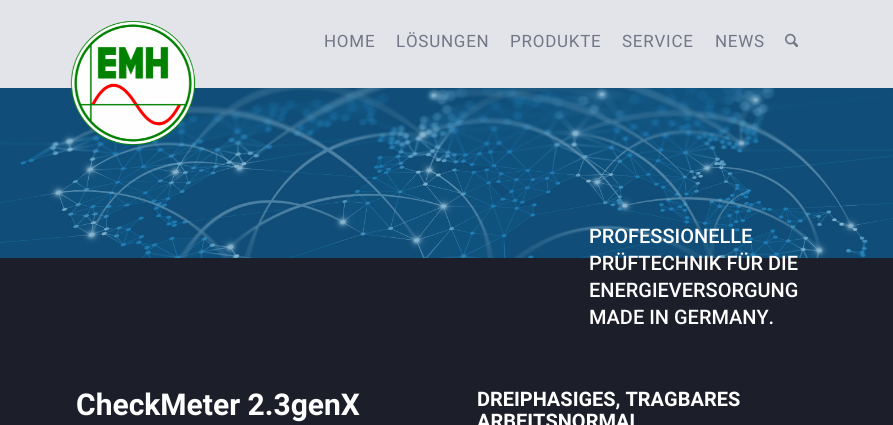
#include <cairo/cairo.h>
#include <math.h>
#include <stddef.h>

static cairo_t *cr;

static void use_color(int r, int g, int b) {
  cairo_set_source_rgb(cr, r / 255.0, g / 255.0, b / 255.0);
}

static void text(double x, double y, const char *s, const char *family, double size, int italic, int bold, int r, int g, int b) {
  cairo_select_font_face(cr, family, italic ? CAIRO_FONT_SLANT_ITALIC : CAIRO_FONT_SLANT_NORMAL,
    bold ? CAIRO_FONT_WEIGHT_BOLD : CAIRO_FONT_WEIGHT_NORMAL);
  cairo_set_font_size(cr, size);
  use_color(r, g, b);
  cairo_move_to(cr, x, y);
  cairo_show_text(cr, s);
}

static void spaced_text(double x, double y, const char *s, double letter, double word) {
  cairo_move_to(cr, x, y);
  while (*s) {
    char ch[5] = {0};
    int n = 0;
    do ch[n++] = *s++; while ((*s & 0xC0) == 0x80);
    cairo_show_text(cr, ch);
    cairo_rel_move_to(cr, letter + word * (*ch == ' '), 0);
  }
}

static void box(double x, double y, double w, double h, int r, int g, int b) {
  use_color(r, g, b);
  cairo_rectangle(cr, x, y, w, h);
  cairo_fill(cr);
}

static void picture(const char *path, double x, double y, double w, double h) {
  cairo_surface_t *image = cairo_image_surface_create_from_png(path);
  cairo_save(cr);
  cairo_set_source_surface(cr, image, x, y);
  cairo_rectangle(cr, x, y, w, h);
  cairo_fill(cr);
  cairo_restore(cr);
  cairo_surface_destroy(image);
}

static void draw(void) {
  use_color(227, 228, 233);
  cairo_paint(cr);
  picture("img_03.png", 0, 88, 893, 170);
  picture("img_01.png", 70, 21, 126, 124);
  picture("img_02.png", 785, 33, 13, 15);
  box(0, 258, 893, 167, 28, 30, 42);
  cairo_select_font_face(cr, "Roboto", CAIRO_FONT_SLANT_NORMAL, CAIRO_FONT_WEIGHT_NORMAL);
  cairo_set_font_size(cr, 17);
  use_color(114, 118, 133);
  spaced_text(324, 47, "HOME", 0.75, 0);
  spaced_text(396, 47, "LÖSUNGEN", 0.75, 0);
  spaced_text(510, 47, "PRODUKTE", 0.75, 0);
  spaced_text(622, 47, "SERVICE", 0.75, 0);
  spaced_text(715, 47, "NEWS", 0.75, 0);
  text(589, 243, "PROFESSIONELLE", "Roboto Medium", 20, 0, 0, 255, 255, 255);
  text(589, 270, "PRÜFTECHNIK FÜR DIE", "Roboto Medium", 20, 0, 0, 255, 255, 255);
  text(589, 297, "ENERGIEVERSORGUNG", "Roboto Medium", 20, 0, 0, 255, 255, 255);
  text(589, 324, "MADE IN GERMANY.", "Roboto Medium", 20, 0, 0, 255, 255, 255);
  text(76, 415, "CheckMeter 2.3genX", "Roboto", 30, 0, 1, 255, 255, 255);
  text(477, 406, "DREIPHASIGES, TRAGBARES", "Roboto", 20, 0, 1, 255, 255, 255);
  text(477, 428, "ARBEITSNORMAL", "Roboto", 20, 0, 1, 255, 255, 255);
}

int main(void) {
  cairo_surface_t *surface = cairo_image_surface_create(CAIRO_FORMAT_RGB24, 893, 425);
  cr = cairo_create(surface);
  cairo_font_options_t *options = cairo_font_options_create();
  cairo_font_options_set_hint_metrics(options, CAIRO_HINT_METRICS_OFF);
  cairo_font_options_set_hint_style(options, CAIRO_HINT_STYLE_NONE);
  cairo_set_font_options(cr, options);
  cairo_set_miter_limit(cr, 4);
  draw();
  cairo_surface_write_to_png(surface, "out.png");
  cairo_font_options_destroy(options);
  cairo_destroy(cr);
  cairo_surface_destroy(surface);
  return 0;
}
